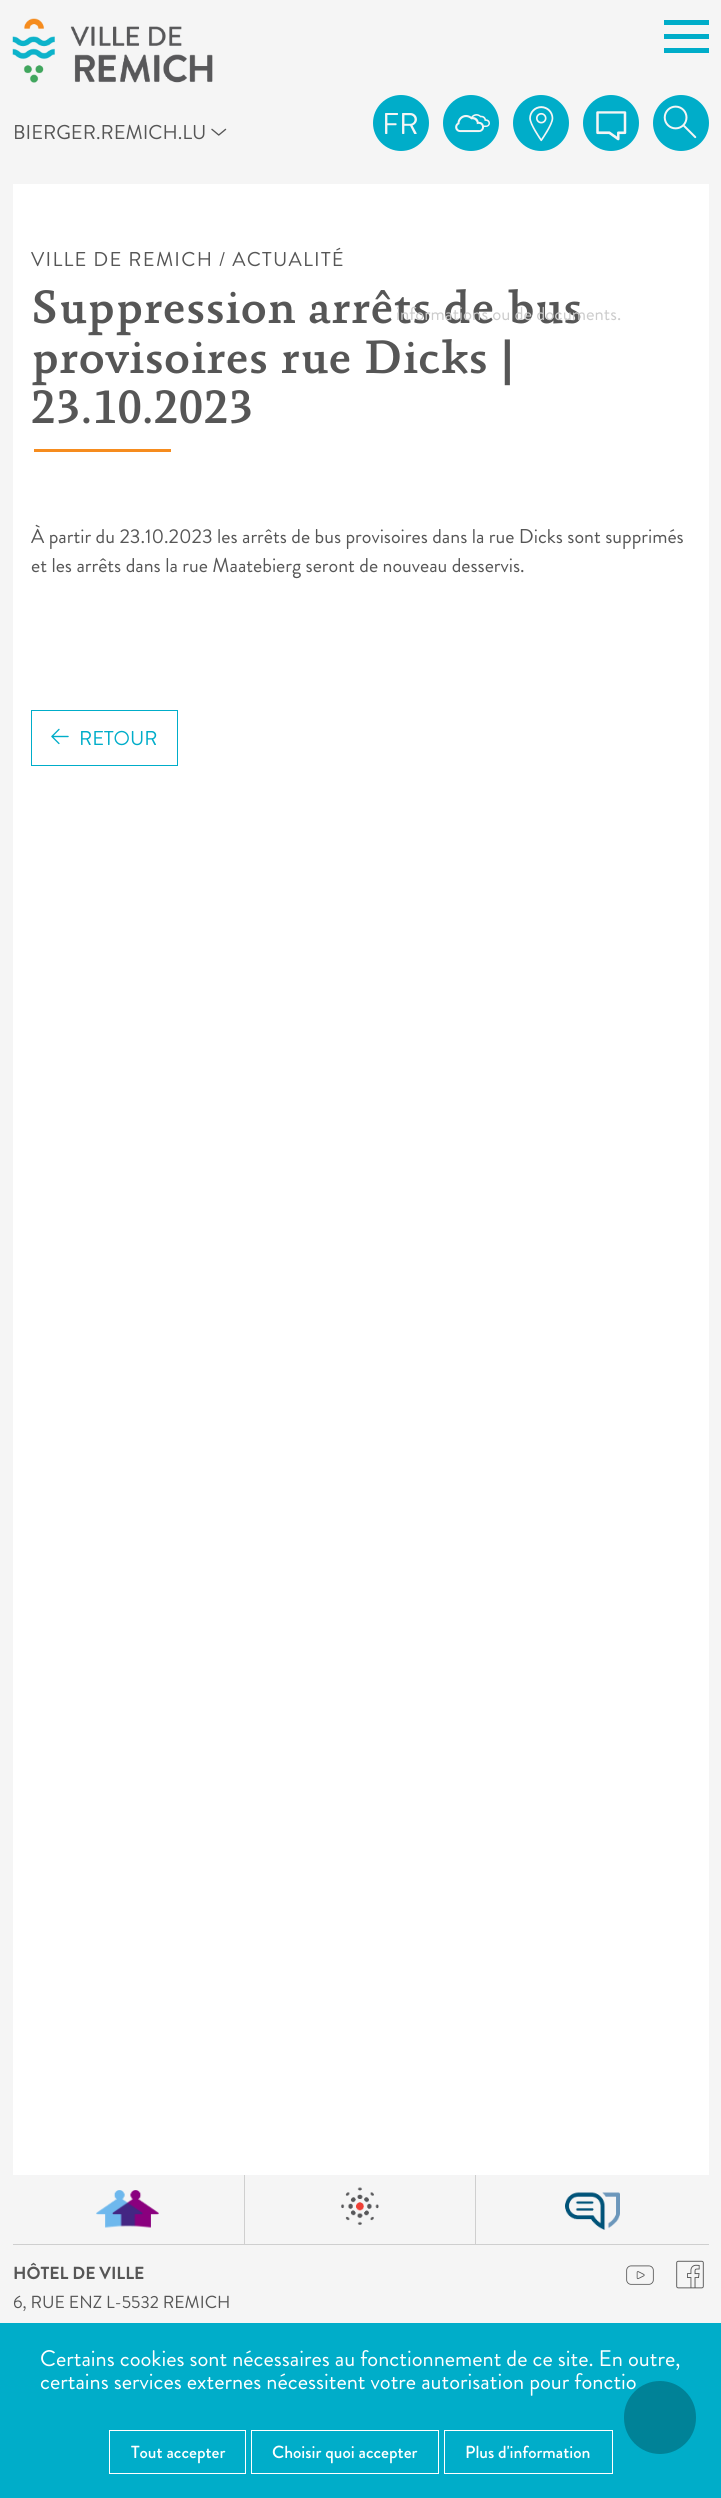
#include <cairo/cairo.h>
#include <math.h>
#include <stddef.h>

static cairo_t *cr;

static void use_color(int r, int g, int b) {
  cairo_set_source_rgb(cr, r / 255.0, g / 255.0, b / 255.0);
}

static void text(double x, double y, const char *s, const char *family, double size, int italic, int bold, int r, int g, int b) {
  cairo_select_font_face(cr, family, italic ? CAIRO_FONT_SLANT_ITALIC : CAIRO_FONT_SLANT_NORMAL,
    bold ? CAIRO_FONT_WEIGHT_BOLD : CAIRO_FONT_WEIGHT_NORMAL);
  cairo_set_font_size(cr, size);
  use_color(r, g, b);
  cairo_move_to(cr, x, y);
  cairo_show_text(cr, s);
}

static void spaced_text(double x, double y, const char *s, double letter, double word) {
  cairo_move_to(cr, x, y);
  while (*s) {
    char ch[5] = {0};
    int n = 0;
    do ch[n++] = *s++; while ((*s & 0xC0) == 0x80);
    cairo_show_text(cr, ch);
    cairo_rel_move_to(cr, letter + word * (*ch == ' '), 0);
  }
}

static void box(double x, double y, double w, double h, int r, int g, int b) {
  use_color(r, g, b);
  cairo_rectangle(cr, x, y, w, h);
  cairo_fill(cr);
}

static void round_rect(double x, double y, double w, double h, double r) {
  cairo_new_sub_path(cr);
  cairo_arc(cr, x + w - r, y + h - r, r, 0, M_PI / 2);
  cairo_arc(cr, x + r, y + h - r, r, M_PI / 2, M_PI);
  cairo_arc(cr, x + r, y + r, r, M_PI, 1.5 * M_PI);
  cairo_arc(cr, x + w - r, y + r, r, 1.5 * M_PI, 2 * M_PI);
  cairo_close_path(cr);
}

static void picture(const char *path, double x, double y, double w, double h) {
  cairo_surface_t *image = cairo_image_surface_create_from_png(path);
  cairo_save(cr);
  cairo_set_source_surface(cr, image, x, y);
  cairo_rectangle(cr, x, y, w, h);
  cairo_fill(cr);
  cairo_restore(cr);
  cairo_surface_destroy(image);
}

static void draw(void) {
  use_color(245, 245, 245);
  cairo_paint(cr);
  box(13, 184, 696, 1991, 255, 255, 255);
  picture("img_01.png", 12, 18, 201, 65);
  box(664, 20, 45, 5, 0, 173, 201);
  box(664, 34, 45, 5, 0, 173, 201);
  box(664, 48, 45, 5, 0, 173, 201);
  picture("img_02.png", 211, 128, 16, 8);
  cairo_arc(cr, 401, 123, 28, 0, 2 * M_PI);
  cairo_fill(cr);
  cairo_arc(cr, 471, 123, 28, 0, 2 * M_PI);
  cairo_fill(cr);
  picture("img_03.png", 455, 114, 35, 19);
  cairo_arc(cr, 541, 123, 28, 0, 2 * M_PI);
  cairo_fill(cr);
  picture("img_04.png", 529, 106, 25, 36);
  cairo_arc(cr, 611, 123, 28, 0, 2 * M_PI);
  cairo_fill(cr);
  picture("img_05.png", 596, 111, 31, 30);
  cairo_arc(cr, 681, 123, 28, 0, 2 * M_PI);
  cairo_fill(cr);
  picture("img_06.png", 663, 105, 34, 34);
  box(34, 449, 137, 3, 246, 140, 30);
  cairo_rectangle(cr, 31.5, 710.5, 146, 55);
  use_color(0, 173, 201);
  cairo_set_line_width(cr, 1);
  cairo_stroke(cr);
  picture("img_07.png", 51, 728, 18, 17);
  box(244, 2175, 1, 69, 207, 207, 207);
  picture("img_08.png", 96, 2190, 63, 38);
  box(475, 2175, 1, 69, 207, 207, 207);
  picture("img_09.png", 341, 2187, 38, 38);
  picture("img_10.png", 565, 2192, 55, 38);
  box(13, 2244, 696, 1, 207, 207, 207);
  picture("img_11.png", 626, 2265, 28, 20);
  picture("img_12.png", 676, 2260, 28, 29);
  box(0, 2323, 721, 175, 0, 173, 201);
  cairo_rectangle(cr, 109.5, 2430.5, 136, 43);
  use_color(255, 255, 255);
  cairo_stroke(cr);
  cairo_rectangle(cr, 251.5, 2430.5, 187, 43);
  cairo_stroke(cr);
  cairo_rectangle(cr, 444.5, 2430.5, 168, 43);
  cairo_stroke(cr);
  text(13, 139, "BIERGER.REMICH.LU", "Brandon Grotesque", 20, 0, 0, 86, 86, 86);
  text(382, 134, "FR", "Brandon Grotesque", 30, 0, 0, 245, 245, 245);
  cairo_set_font_size(cr, 20);
  use_color(86, 86, 86);
  spaced_text(31, 266, "VILLE DE REMICH / ACTUALITÉ", 1.25, 0);
  cairo_select_font_face(cr, "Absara", CAIRO_FONT_SLANT_NORMAL, CAIRO_FONT_WEIGHT_NORMAL);
  cairo_set_font_size(cr, 47.5);
  spaced_text(31, 323, "Suppression arrêts de bus", 0.6, 0);
  spaced_text(31, 373, "provisoires rue Dicks |", 0.6, 0);
  spaced_text(31, 423, "23.10.2023", 0.6, 0);
  text(31, 543, "À partir du 23.10.2023 les arrêts de bus provisoires dans la rue Dicks sont supprimés", "Brandon Grotesque", 20, 0, 0, 86, 86, 86);
  text(31, 572, "et les arrêts dans la rue Maatebierg seront de nouveau desservis.", "Brandon Grotesque", 20, 0, 0, 86, 86, 86);
  text(79, 745, "RETOUR", "Brandon Grotesque", 20, 0, 0, 0, 173, 201);
  text(396, 320, "informations ou de documents.", "Brandon Grotesque", 18.75, 0, 0, 204, 204, 204);
  text(13, 2279, "HÔTEL DE VILLE", "Brandon Grotesque", 17.5, 0, 1, 86, 86, 86);
  text(13, 2308, "6, RUE ENZ L-5532 REMICH", "Brandon Grotesque", 17.5, 0, 0, 86, 86, 86);
  text(40, 2366, "Certains cookies sont nécessaires au fonctionnement de ce site. En outre,", "Brandon Grotesque", 22.5, 0, 0, 255, 255, 255);
  text(40, 2389, "certains services externes nécessitent votre autorisation pour fonctio", "Brandon Grotesque", 22.5, 0, 0, 255, 255, 255);
  text(131, 2458, "Tout accepter", "Brandon Grotesque Medium", 17.5, 0, 0, 255, 255, 255);
  text(272, 2458, "Choisir quoi accepter", "Brandon Grotesque Medium", 17.5, 0, 0, 255, 255, 255);
  text(465, 2458, "Plus d'information", "Brandon Grotesque Medium", 17.5, 0, 0, 255, 255, 255);
  use_color(0, 130, 151);
  round_rect(624, 2381, 72, 73, 36);
  cairo_fill(cr);
}

int main(void) {
  cairo_surface_t *surface = cairo_image_surface_create(CAIRO_FORMAT_RGB24, 721, 2498);
  cr = cairo_create(surface);
  cairo_font_options_t *options = cairo_font_options_create();
  cairo_font_options_set_hint_metrics(options, CAIRO_HINT_METRICS_OFF);
  cairo_font_options_set_hint_style(options, CAIRO_HINT_STYLE_NONE);
  cairo_set_font_options(cr, options);
  cairo_set_miter_limit(cr, 4);
  draw();
  cairo_surface_write_to_png(surface, "out.png");
  cairo_font_options_destroy(options);
  cairo_destroy(cr);
  cairo_surface_destroy(surface);
  return 0;
}
